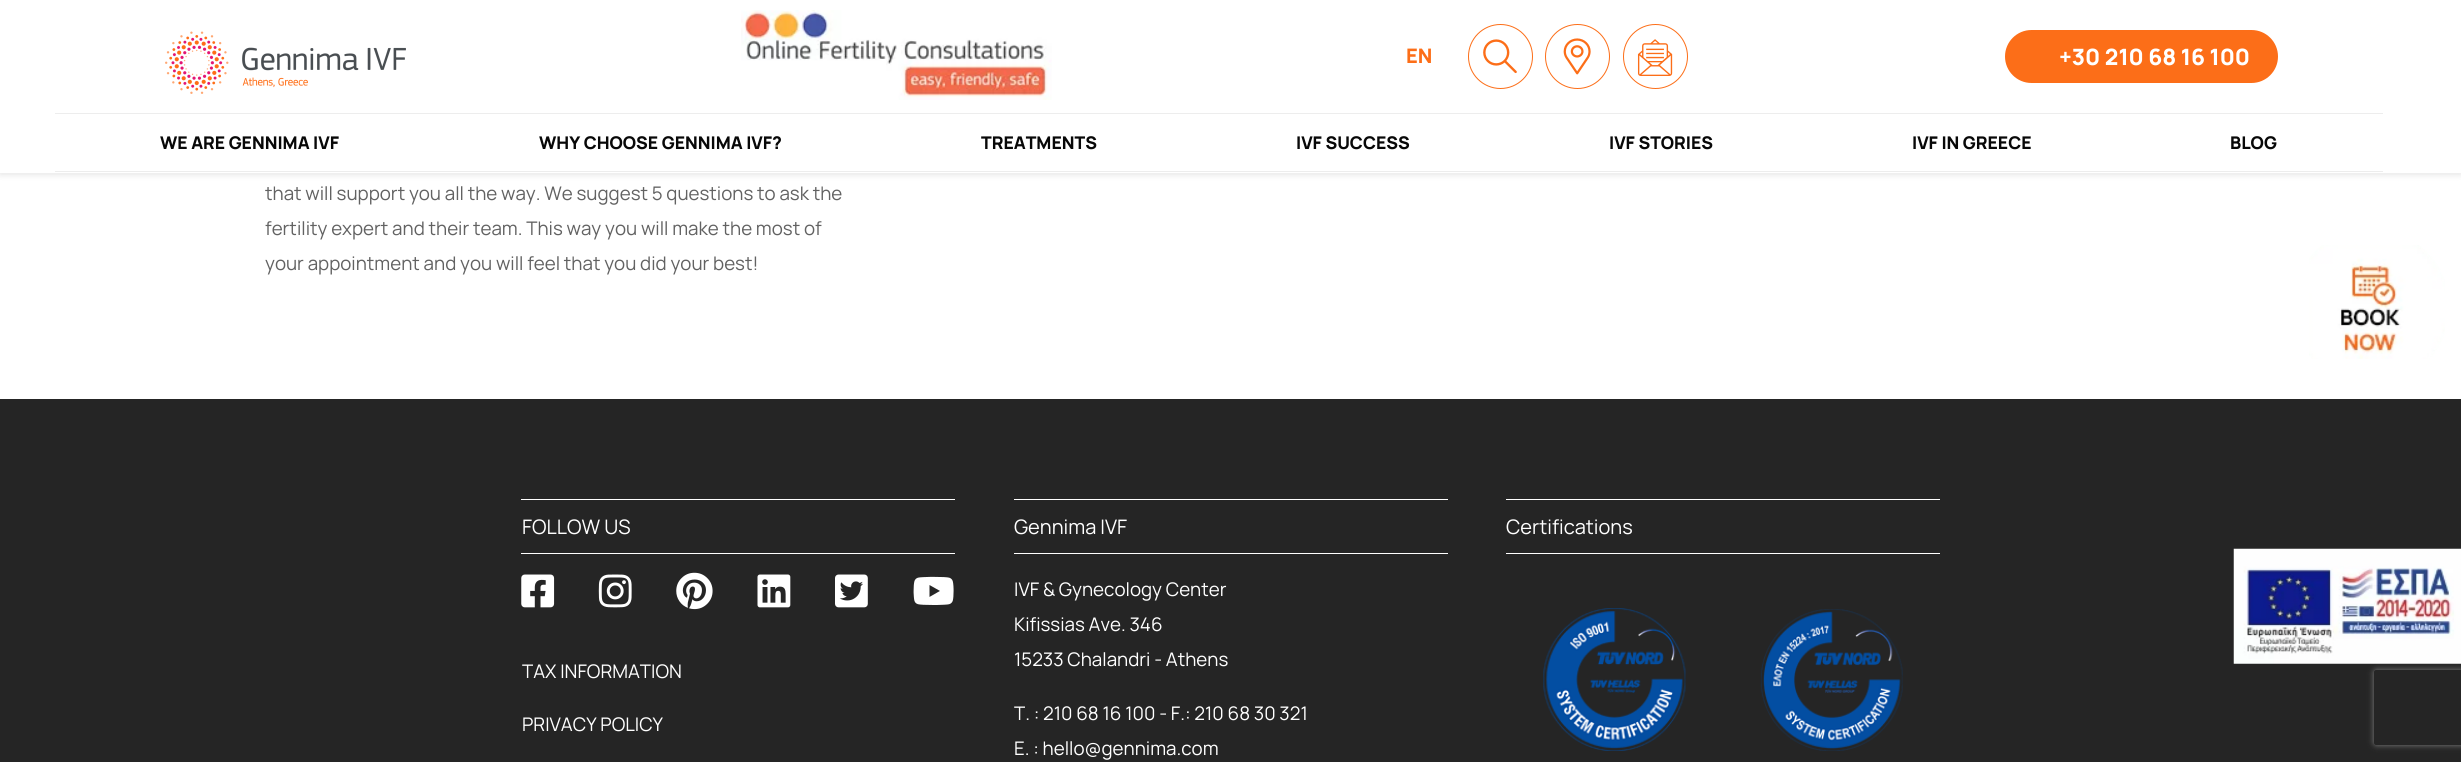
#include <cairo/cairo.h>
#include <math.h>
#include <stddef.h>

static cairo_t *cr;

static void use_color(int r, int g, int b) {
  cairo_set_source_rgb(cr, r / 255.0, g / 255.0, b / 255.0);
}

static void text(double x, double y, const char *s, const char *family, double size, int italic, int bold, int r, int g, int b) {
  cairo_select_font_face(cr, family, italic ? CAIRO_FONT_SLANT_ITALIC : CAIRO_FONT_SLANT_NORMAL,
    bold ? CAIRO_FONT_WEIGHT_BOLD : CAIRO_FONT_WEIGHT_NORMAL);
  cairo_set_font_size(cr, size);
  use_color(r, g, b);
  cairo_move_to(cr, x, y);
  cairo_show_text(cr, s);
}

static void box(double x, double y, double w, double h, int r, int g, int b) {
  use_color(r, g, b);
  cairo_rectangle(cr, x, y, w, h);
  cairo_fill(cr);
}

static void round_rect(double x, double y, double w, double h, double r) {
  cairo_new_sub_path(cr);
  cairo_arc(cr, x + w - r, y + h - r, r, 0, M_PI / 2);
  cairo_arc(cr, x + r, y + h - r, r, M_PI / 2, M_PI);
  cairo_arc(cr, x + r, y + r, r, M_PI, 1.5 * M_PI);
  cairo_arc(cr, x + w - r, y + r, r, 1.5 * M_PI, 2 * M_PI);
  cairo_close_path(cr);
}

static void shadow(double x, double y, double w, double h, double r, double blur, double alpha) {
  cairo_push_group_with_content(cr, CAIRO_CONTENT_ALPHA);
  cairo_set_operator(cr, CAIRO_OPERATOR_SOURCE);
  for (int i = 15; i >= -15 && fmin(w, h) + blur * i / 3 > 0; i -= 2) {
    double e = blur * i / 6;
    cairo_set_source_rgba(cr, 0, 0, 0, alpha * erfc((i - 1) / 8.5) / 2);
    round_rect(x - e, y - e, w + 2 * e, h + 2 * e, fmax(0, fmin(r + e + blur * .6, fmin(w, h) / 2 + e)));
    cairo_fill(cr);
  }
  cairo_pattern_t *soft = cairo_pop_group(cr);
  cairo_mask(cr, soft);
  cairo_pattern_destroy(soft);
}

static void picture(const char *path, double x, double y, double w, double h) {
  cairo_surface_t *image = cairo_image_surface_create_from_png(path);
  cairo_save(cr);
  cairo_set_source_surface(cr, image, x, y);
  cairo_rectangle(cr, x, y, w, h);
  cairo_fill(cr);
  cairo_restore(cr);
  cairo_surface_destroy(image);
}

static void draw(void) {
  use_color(255, 255, 255);
  cairo_paint(cr);
  cairo_save(cr);
  cairo_set_fill_rule(cr, CAIRO_FILL_RULE_EVEN_ODD);
  cairo_new_path(cr);
  cairo_move_to(cr, 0, 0);
  cairo_line_to(cr, 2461, 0);
  cairo_line_to(cr, 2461, 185);
  cairo_line_to(cr, 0, 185);
  cairo_close_path(cr);
  cairo_move_to(cr, 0, 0);
  cairo_line_to(cr, 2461, 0);
  cairo_line_to(cr, 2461, 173);
  cairo_line_to(cr, 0, 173);
  cairo_close_path(cr);
  cairo_clip(cr);
  use_color(8, 8, 8);
  shadow(0, 3, 2461, 172, 0, 3, 0.1);
  cairo_restore(cr);
  cairo_set_source_rgba(cr, 1, 1, 1, 0.97);
  cairo_rectangle(cr, 0, 172, 2461, 1);
  cairo_fill(cr);
  picture("img_01.png", 165, 31, 241, 63);
  picture("img_02.png", 741, 10, 311, 90);
  cairo_arc(cr, 1500.5, 56.5, 32, 0, 2 * M_PI);
  use_color(252, 110, 24);
  cairo_set_line_width(cr, 1);
  cairo_stroke(cr);
  picture("img_03.png", 1483, 39, 34, 35);
  cairo_arc(cr, 1577.5, 56.5, 32, 0, 2 * M_PI);
  cairo_stroke(cr);
  picture("img_04.png", 1563, 38, 28, 37);
  cairo_arc(cr, 1655.5, 56.5, 32, 0, 2 * M_PI);
  cairo_stroke(cr);
  picture("img_05.png", 1637, 39, 36, 37);
  round_rect(2005, 30, 273, 53, 26.5);
  cairo_fill(cr);
  box(55, 113, 2328, 1, 237, 237, 237);
  box(55, 171, 2328, 1, 237, 237, 237);
  box(0, 399, 2461, 363, 37, 37, 37);
  box(521, 499, 434, 1, 255, 255, 255);
  box(521, 553, 434, 1, 255, 255, 255);
  picture("img_06.png", 521, 574, 34, 34);
  picture("img_07.png", 598, 574, 34, 34);
  picture("img_08.png", 676, 572, 37, 38);
  picture("img_09.png", 757, 574, 34, 34);
  picture("img_10.png", 835, 574, 33, 34);
  picture("img_11.png", 913, 576, 41, 29);
  box(1014, 499, 434, 1, 255, 255, 255);
  box(1014, 553, 434, 1, 255, 255, 255);
  box(1506, 499, 434, 1, 255, 255, 255);
  box(1506, 553, 434, 1, 255, 255, 255);
  picture("img_12.png", 1543, 608, 143, 143);
  picture("img_13.png", 1760, 609, 143, 142);
  picture("img_14.png", 2233, 548, 228, 116);
  picture("img_15.png", 2309, 245, 136, 114);
  cairo_save(cr);
  cairo_set_fill_rule(cr, CAIRO_FILL_RULE_EVEN_ODD);
  cairo_new_path(cr);
  cairo_move_to(cr, 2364, 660);
  cairo_line_to(cr, 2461, 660);
  cairo_line_to(cr, 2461, 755);
  cairo_line_to(cr, 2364, 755);
  cairo_close_path(cr);
  cairo_move_to(cr, 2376.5, 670);
  cairo_line_to(cr, 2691.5, 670);
  cairo_curve_to(cr, 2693, 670, 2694, 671, 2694, 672.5);
  cairo_line_to(cr, 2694, 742.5);
  cairo_curve_to(cr, 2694, 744, 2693, 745, 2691.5, 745);
  cairo_line_to(cr, 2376.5, 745);
  cairo_curve_to(cr, 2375, 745, 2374, 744, 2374, 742.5);
  cairo_line_to(cr, 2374, 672.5);
  cairo_curve_to(cr, 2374, 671, 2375, 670, 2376.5, 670);
  cairo_close_path(cr);
  cairo_clip(cr);
  use_color(128, 128, 128);
  shadow(2374, 670, 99, 75, 2.5, 3, 1);
  cairo_restore(cr);
  text(1406, 63, "EN", "Manrope ExtraBold", 20, 0, 0, 252, 110, 24);
  text(2059, 65, "+30 210 68 16 100", "Manrope ExtraBold", 22.5, 0, 0, 255, 255, 255);
  text(160, 149, "WE ARE GENNIMA IVF", "Manrope ExtraBold", 17.5, 0, 0, 8, 8, 8);
  text(539, 149, "WHY CHOOSE GENNIMA IVF?", "Manrope ExtraBold", 17.5, 0, 0, 8, 8, 8);
  text(981, 149, "TREATMENTS", "Manrope ExtraBold", 17.5, 0, 0, 8, 8, 8);
  text(1296, 149, "IVF SUCCESS", "Manrope ExtraBold", 17.5, 0, 0, 8, 8, 8);
  text(1609, 149, "IVF STORIES", "Manrope ExtraBold", 17.5, 0, 0, 8, 8, 8);
  text(1912, 149, "IVF IN GREECE", "Manrope ExtraBold", 17.5, 0, 0, 8, 8, 8);
  text(2230, 149, "BLOG", "Manrope ExtraBold", 17.5, 0, 0, 8, 8, 8);
  text(265, 200, "that will support you all the way. We suggest 5 questions to ask the", "Manrope", 18.75, 0, 0, 98, 98, 98);
  text(265, 235, "fertility expert and their team. This way you will make the most of", "Manrope", 18.75, 0, 0, 98, 98, 98);
  text(265, 270, "your appointment and you will feel that you did your best!", "Manrope", 18.75, 0, 0, 98, 98, 98);
  text(522, 534, "FOLLOW US", "Manrope", 20, 0, 0, 255, 255, 255);
  text(522, 678, "TAX INFORMATION", "Manrope", 18.75, 0, 0, 255, 255, 255);
  text(522, 731, "PRIVACY POLICY", "Manrope", 18.75, 0, 0, 255, 255, 255);
  text(1014, 534, "Gennima IVF", "Manrope", 20, 0, 0, 255, 255, 255);
  text(1014, 596, "IVF & Gynecology Center", "Manrope", 18.75, 0, 0, 255, 255, 255);
  text(1014, 631, "Kifissias Ave. 346", "Manrope", 18.75, 0, 0, 255, 255, 255);
  text(1014, 666, "15233 Chalandri - Athens", "Manrope", 18.75, 0, 0, 255, 255, 255);
  text(1014, 720, "Τ. : 210 68 16 100 - F.: 210 68 30 321", "Manrope", 18.75, 0, 0, 255, 255, 255);
  text(1014, 755, "Ε. : hello@gennima.com", "Manrope", 18.75, 0, 0, 255, 255, 255);
  text(1506, 534, "Certifications", "Manrope", 20, 0, 0, 255, 255, 255);
}

int main(void) {
  cairo_surface_t *surface = cairo_image_surface_create(CAIRO_FORMAT_RGB24, 2461, 762);
  cr = cairo_create(surface);
  cairo_font_options_t *options = cairo_font_options_create();
  cairo_font_options_set_hint_metrics(options, CAIRO_HINT_METRICS_OFF);
  cairo_font_options_set_hint_style(options, CAIRO_HINT_STYLE_NONE);
  cairo_set_font_options(cr, options);
  cairo_set_miter_limit(cr, 4);
  draw();
  cairo_surface_write_to_png(surface, "out.png");
  cairo_font_options_destroy(options);
  cairo_destroy(cr);
  cairo_surface_destroy(surface);
  return 0;
}
